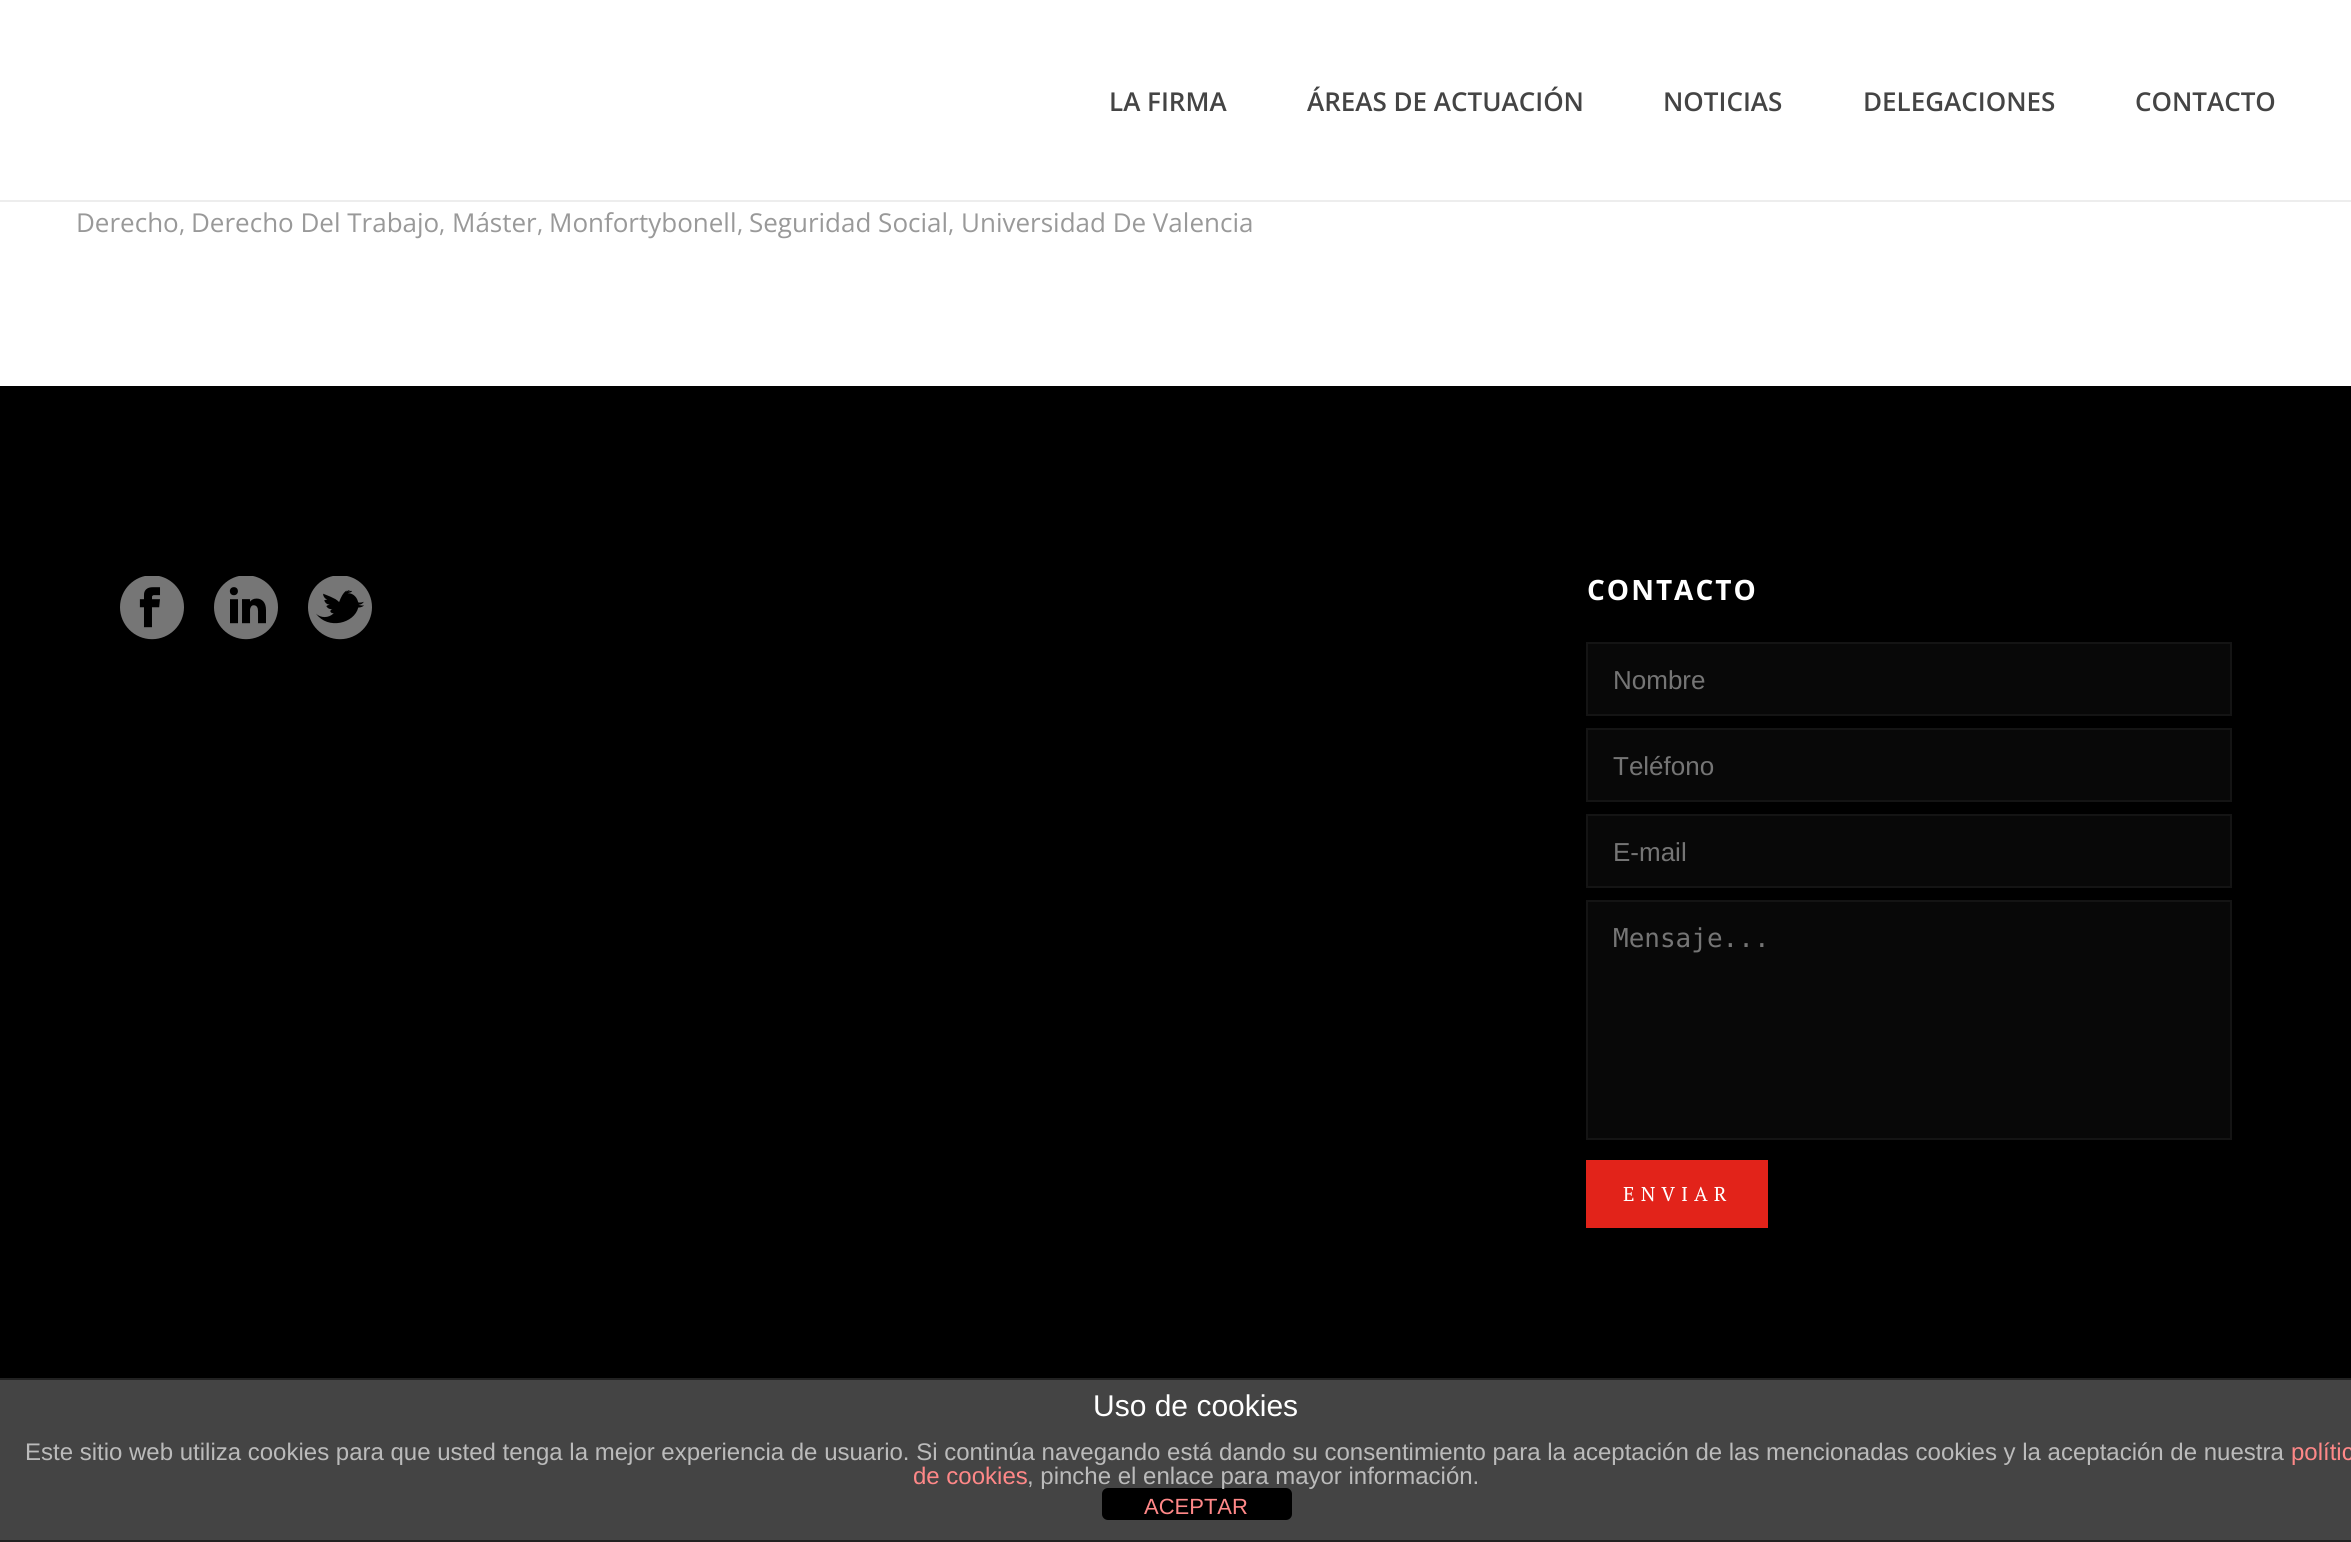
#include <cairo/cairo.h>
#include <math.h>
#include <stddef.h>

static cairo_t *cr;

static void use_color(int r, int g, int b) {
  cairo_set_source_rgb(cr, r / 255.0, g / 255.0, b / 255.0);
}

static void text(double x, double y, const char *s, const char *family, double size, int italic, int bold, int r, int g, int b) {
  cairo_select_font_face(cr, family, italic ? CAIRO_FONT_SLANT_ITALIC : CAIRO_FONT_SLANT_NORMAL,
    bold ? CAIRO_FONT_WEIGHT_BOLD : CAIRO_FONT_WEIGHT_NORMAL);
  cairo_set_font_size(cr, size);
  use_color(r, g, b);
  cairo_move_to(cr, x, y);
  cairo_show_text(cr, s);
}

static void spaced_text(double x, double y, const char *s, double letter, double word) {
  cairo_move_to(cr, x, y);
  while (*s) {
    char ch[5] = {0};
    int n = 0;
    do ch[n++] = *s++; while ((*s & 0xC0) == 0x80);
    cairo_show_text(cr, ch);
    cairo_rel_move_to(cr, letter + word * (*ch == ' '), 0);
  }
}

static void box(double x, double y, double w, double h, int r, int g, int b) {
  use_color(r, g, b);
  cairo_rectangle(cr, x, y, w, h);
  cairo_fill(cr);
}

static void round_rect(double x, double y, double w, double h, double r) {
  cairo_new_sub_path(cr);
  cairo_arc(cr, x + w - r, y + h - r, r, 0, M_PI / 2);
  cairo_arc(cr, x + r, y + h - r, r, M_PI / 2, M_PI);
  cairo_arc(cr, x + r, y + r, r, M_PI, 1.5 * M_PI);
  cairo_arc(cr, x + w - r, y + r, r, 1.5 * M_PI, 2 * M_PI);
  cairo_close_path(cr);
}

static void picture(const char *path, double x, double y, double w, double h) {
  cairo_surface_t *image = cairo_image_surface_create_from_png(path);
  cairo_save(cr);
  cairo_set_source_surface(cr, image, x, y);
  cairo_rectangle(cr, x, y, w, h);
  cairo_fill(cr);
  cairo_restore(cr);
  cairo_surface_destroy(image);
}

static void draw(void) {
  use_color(255, 255, 255);
  cairo_paint(cr);
  box(0, 200, 2351, 2, 237, 237, 237);
  box(0, 386, 2351, 992, 0, 0, 0);
  picture("img_01.png", 120, 576, 64, 64);
  picture("img_02.png", 214, 576, 64, 64);
  picture("img_03.png", 308, 576, 64, 64);
  use_color(8, 8, 8);
  cairo_rectangle(cr, 1587, 643, 644, 72);
  cairo_fill_preserve(cr);
  use_color(20, 20, 20);
  cairo_stroke(cr);
  use_color(8, 8, 8);
  cairo_rectangle(cr, 1587, 729, 644, 72);
  cairo_fill_preserve(cr);
  use_color(20, 20, 20);
  cairo_stroke(cr);
  use_color(8, 8, 8);
  cairo_rectangle(cr, 1587, 815, 644, 72);
  cairo_fill_preserve(cr);
  use_color(20, 20, 20);
  cairo_stroke(cr);
  use_color(8, 8, 8);
  cairo_rectangle(cr, 1587, 901, 644, 238);
  cairo_fill_preserve(cr);
  use_color(20, 20, 20);
  cairo_stroke(cr);
  box(1586, 1160, 182, 68, 226, 35, 26);
  box(0, 1380, 2351, 160, 68, 68, 68);
  box(0, 1378, 2351, 2, 34, 34, 34);
  box(0, 1540, 2351, 2, 34, 34, 34);
  use_color(0, 0, 0);
  round_rect(1102, 1488, 190, 32, 6);
  cairo_fill(cr);
  text(1109, 111, "LA FIRMA", "Open Sans SemiBold", 26, 0, 0, 68, 68, 68);
  text(1307, 111, "ÁREAS DE ACTUACIÓN", "Open Sans SemiBold", 26, 0, 0, 68, 68, 68);
  text(1663, 111, "NOTICIAS", "Open Sans SemiBold", 26, 0, 0, 68, 68, 68);
  text(1863, 111, "DELEGACIONES", "Open Sans SemiBold", 26, 0, 0, 68, 68, 68);
  text(2135, 111, "CONTACTO", "Open Sans SemiBold", 26, 0, 0, 68, 68, 68);
  text(76, 232, "Derecho", "Open Sans", 26, 0, 0, 153, 153, 153);
  text(179, 232, ",", "Open Sans", 24, 0, 0, 153, 153, 153);
  text(191, 232, "Derecho Del Trabajo", "Open Sans", 26, 0, 0, 153, 153, 153);
  text(439, 232, ",", "Open Sans", 24, 0, 0, 153, 153, 153);
  text(452, 232, "Máster", "Open Sans", 26, 0, 0, 153, 153, 153);
  text(537, 232, ",", "Open Sans", 24, 0, 0, 153, 153, 153);
  text(549, 232, "Monfortybonell", "Open Sans", 26, 0, 0, 153, 153, 153);
  text(737, 232, ",", "Open Sans", 24, 0, 0, 153, 153, 153);
  text(749, 232, "Seguridad Social", "Open Sans", 26, 0, 0, 153, 153, 153);
  text(948, 232, ",", "Open Sans", 24, 0, 0, 153, 153, 153);
  text(961, 232, "Universidad De Valencia", "Open Sans", 26, 0, 0, 153, 153, 153);
  cairo_select_font_face(cr, "Open Sans", CAIRO_FONT_SLANT_NORMAL, CAIRO_FONT_WEIGHT_BOLD);
  cairo_set_font_size(cr, 28);
  use_color(255, 255, 255);
  spaced_text(1587, 600, "CONTACTO", 2, 0);
  text(1613, 689, "Nombre", "Liberation Sans", 26, 0, 0, 117, 117, 117);
  text(1613, 775, "Teléfono", "Liberation Sans", 26, 0, 0, 117, 117, 117);
  text(1613, 861, "E-mail", "Liberation Sans", 26, 0, 0, 117, 117, 117);
  text(1613, 947, "Mensaje...", "DejaVu Sans Mono", 26, 0, 0, 117, 117, 117);
  cairo_select_font_face(cr, "PT Serif", CAIRO_FONT_SLANT_NORMAL, CAIRO_FONT_WEIGHT_NORMAL);
  cairo_set_font_size(cr, 20);
  use_color(255, 255, 255);
  spaced_text(1623, 1201, "ENVIAR", 6, 0);
  text(1093, 1416, "Uso de cookies", "Liberation Sans", 30, 0, 0, 255, 255, 255);
  text(25, 1460, "Este sitio web utiliza cookies para que usted tenga la mejor experiencia de usuario. Si continúa navegando está dando su consentimiento para la aceptación de las mencionadas cookies y la aceptación de nuestra", "Liberation Sans", 24, 0, 0, 187, 187, 187);
  text(2291, 1460, "polític", "Liberation Sans", 24, 0, 0, 255, 136, 136);
  text(913, 1484, "de cookies", "Liberation Sans", 24, 0, 0, 255, 136, 136);
  text(1027, 1484, ", pinche el enlace para mayor información.", "Liberation Sans", 24, 0, 0, 187, 187, 187);
  text(1144, 1514, "ACEPTAR", "Liberation Sans", 22, 0, 0, 255, 136, 136);
}

int main(void) {
  cairo_surface_t *surface = cairo_image_surface_create(CAIRO_FORMAT_RGB24, 2351, 1542);
  cr = cairo_create(surface);
  cairo_font_options_t *options = cairo_font_options_create();
  cairo_font_options_set_hint_metrics(options, CAIRO_HINT_METRICS_OFF);
  cairo_font_options_set_hint_style(options, CAIRO_HINT_STYLE_NONE);
  cairo_set_font_options(cr, options);
  cairo_set_miter_limit(cr, 4);
  draw();
  cairo_surface_write_to_png(surface, "out.png");
  cairo_font_options_destroy(options);
  cairo_destroy(cr);
  cairo_surface_destroy(surface);
  return 0;
}
